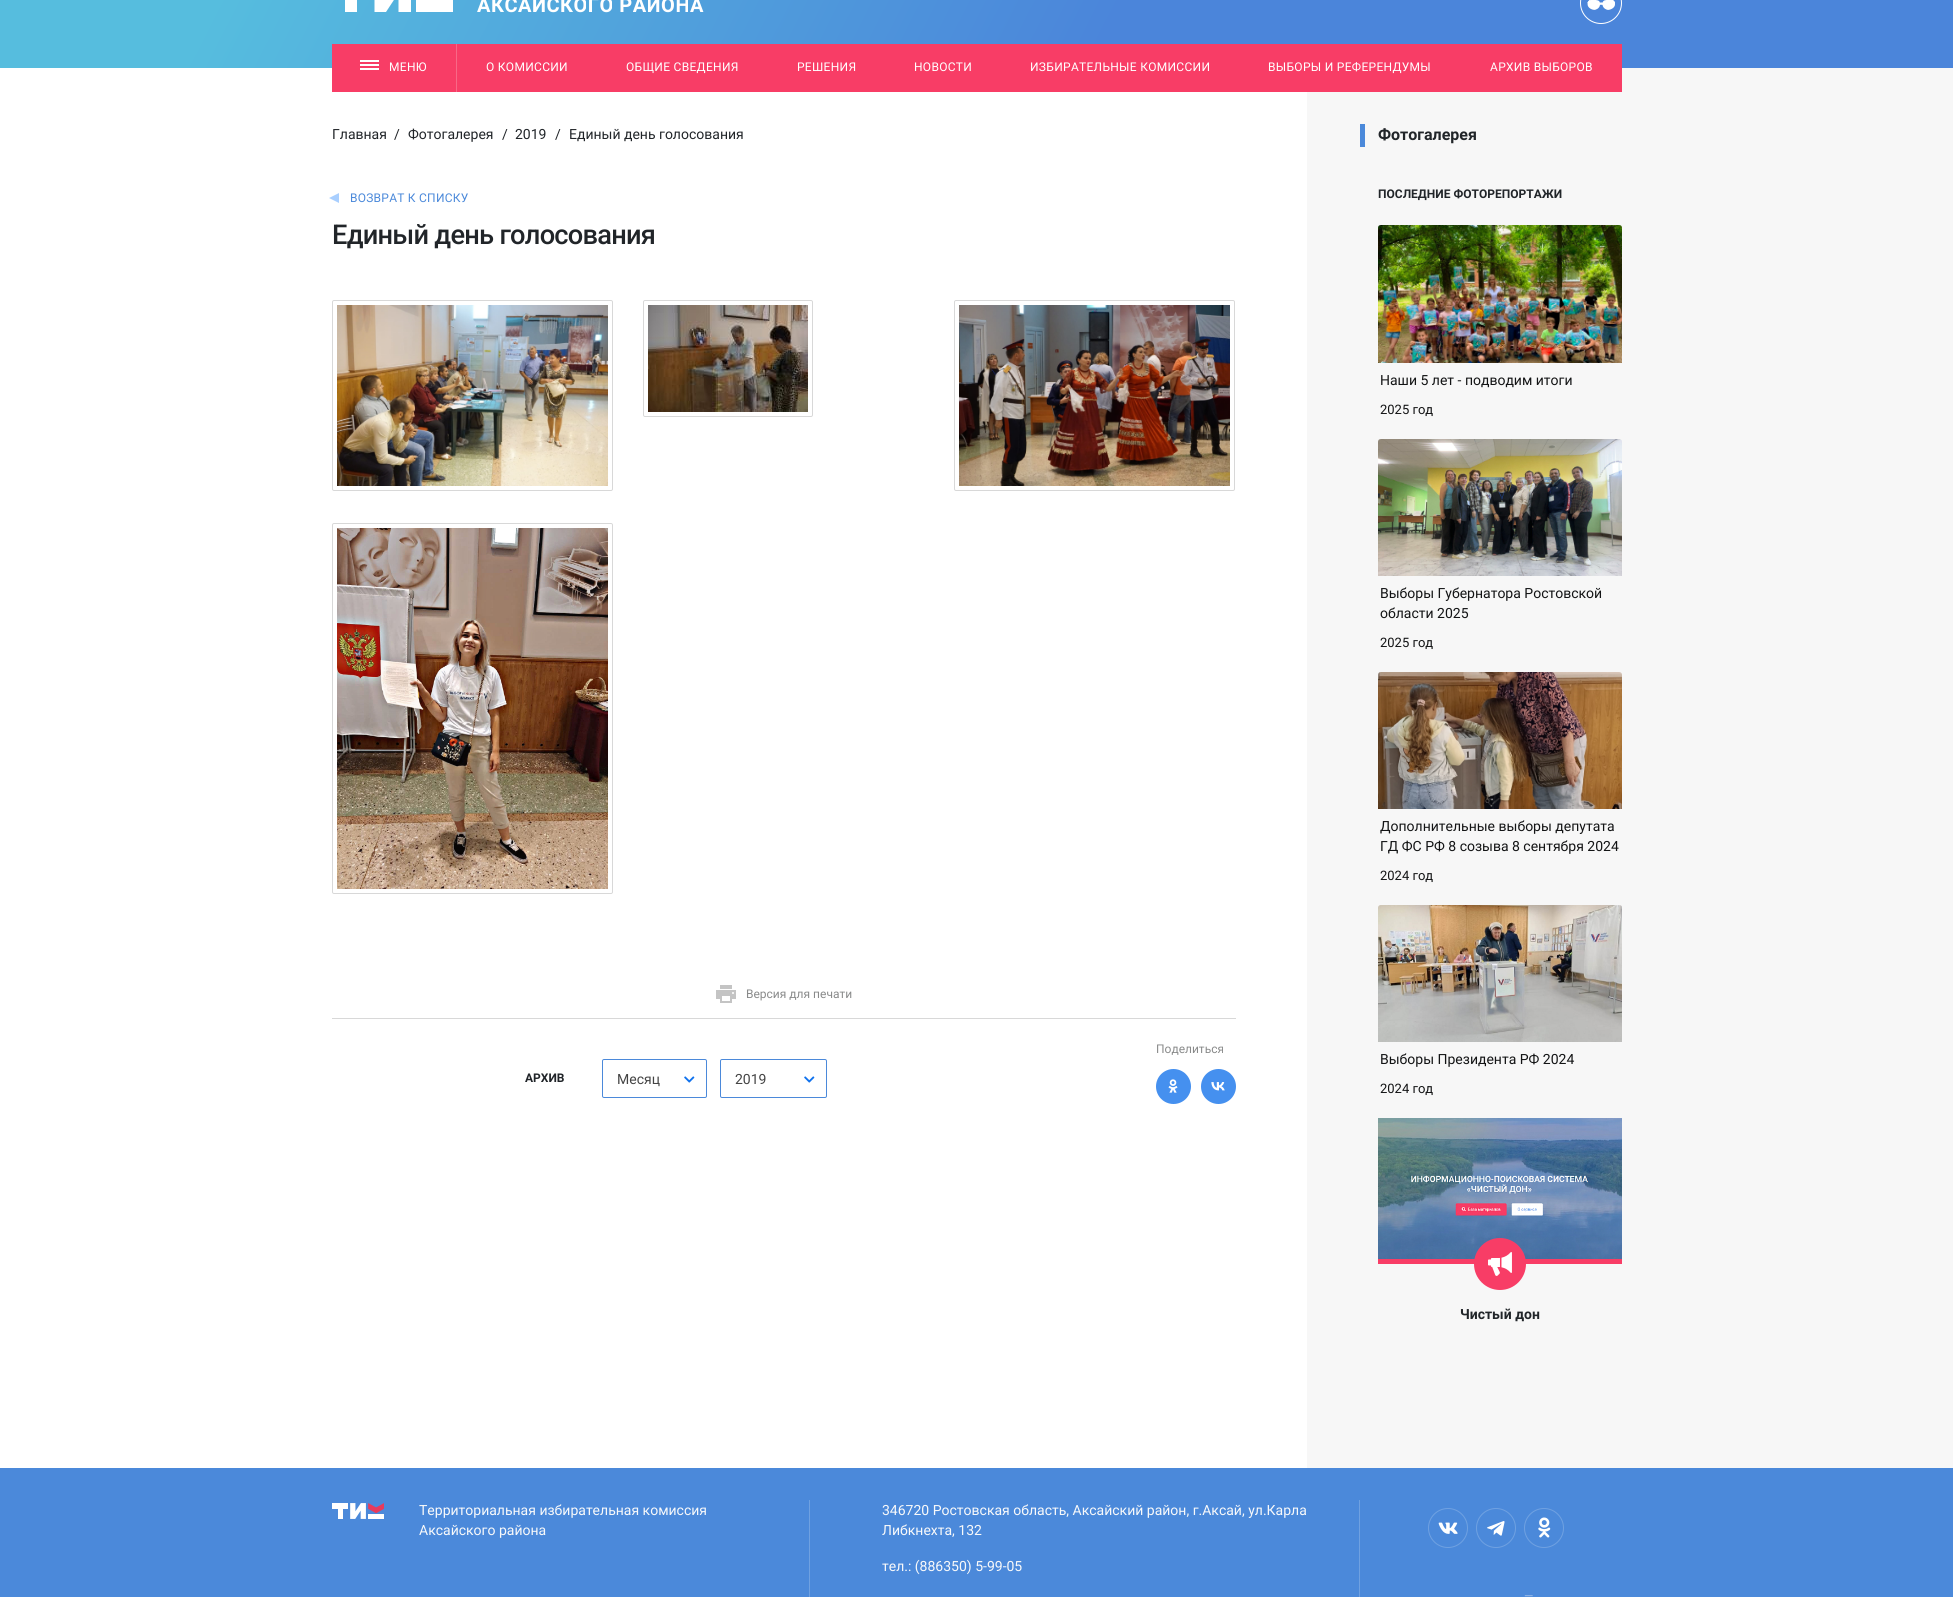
#include <cairo/cairo.h>
#include <math.h>
#include <stddef.h>

static cairo_t *cr;

static void use_color(int r, int g, int b) {
  cairo_set_source_rgb(cr, r / 255.0, g / 255.0, b / 255.0);
}

static void text(double x, double y, const char *s, const char *family, double size, int italic, int bold, int r, int g, int b) {
  cairo_select_font_face(cr, family, italic ? CAIRO_FONT_SLANT_ITALIC : CAIRO_FONT_SLANT_NORMAL,
    bold ? CAIRO_FONT_WEIGHT_BOLD : CAIRO_FONT_WEIGHT_NORMAL);
  cairo_set_font_size(cr, size);
  use_color(r, g, b);
  cairo_move_to(cr, x, y);
  cairo_show_text(cr, s);
}

static void spaced_text(double x, double y, const char *s, double letter, double word) {
  cairo_move_to(cr, x, y);
  while (*s) {
    char ch[5] = {0};
    int n = 0;
    do ch[n++] = *s++; while ((*s & 0xC0) == 0x80);
    cairo_show_text(cr, ch);
    cairo_rel_move_to(cr, letter + word * (*ch == ' '), 0);
  }
}

static void box(double x, double y, double w, double h, int r, int g, int b) {
  use_color(r, g, b);
  cairo_rectangle(cr, x, y, w, h);
  cairo_fill(cr);
}

static void round_rect(double x, double y, double w, double h, double r) {
  cairo_new_sub_path(cr);
  cairo_arc(cr, x + w - r, y + h - r, r, 0, M_PI / 2);
  cairo_arc(cr, x + r, y + h - r, r, M_PI / 2, M_PI);
  cairo_arc(cr, x + r, y + r, r, M_PI, 1.5 * M_PI);
  cairo_arc(cr, x + w - r, y + r, r, 1.5 * M_PI, 2 * M_PI);
  cairo_close_path(cr);
}

static void picture(const char *path, double x, double y, double w, double h) {
  cairo_surface_t *image = cairo_image_surface_create_from_png(path);
  cairo_save(cr);
  cairo_set_source_surface(cr, image, x, y);
  cairo_rectangle(cr, x, y, w, h);
  cairo_fill(cr);
  cairo_restore(cr);
  cairo_surface_destroy(image);
}

static void draw(void) {
  cairo_pattern_t *gradient;
  use_color(255, 255, 255);
  cairo_paint(cr);
  gradient = cairo_pattern_create_linear(178, -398, 1775, 417);
  cairo_pattern_add_color_stop_rgba(gradient, 0.12, 0.337, 0.741, 0.871, 1);
  cairo_pattern_add_color_stop_rgba(gradient, 0.57, 0.294, 0.522, 0.855, 1);
  cairo_set_source(cr, gradient);
  cairo_pattern_destroy(gradient);
  cairo_rectangle(cr, 0, 0, 1953, 68);
  cairo_fill(cr);
  use_color(255, 255, 255);
  cairo_set_fill_rule(cr, CAIRO_FILL_RULE_EVEN_ODD);
  cairo_new_path(cr);
  cairo_move_to(cr, 374.5, -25);
  cairo_line_to(cr, 386.5, -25);
  cairo_line_to(cr, 386.5, -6);
  cairo_line_to(cr, 399, -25);
  cairo_line_to(cr, 411, -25);
  cairo_line_to(cr, 411, 12);
  cairo_line_to(cr, 398.5, 12);
  cairo_line_to(cr, 398.5, -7);
  cairo_line_to(cr, 386, 12);
  cairo_line_to(cr, 374.5, 12);
  cairo_close_path(cr);
  cairo_fill(cr);
  box(416, 0, 37, 12, 255, 255, 255);
  box(345, 0, 12, 12, 255, 255, 255);
  cairo_arc(cr, 1601, 3, 20.5, 0, 2 * M_PI);
  cairo_set_line_width(cr, 1);
  cairo_stroke(cr);
  picture("img_01.png", 1587, 0, 28, 10);
  box(1307, 68, 646, 1400, 247, 247, 247);
  box(332, 44, 1290, 48, 248, 61, 102);
  box(456, 44, 1, 48, 248, 104, 135);
  box(360, 60, 19, 2, 255, 255, 255);
  box(360, 68, 19, 2, 255, 255, 255);
  box(360, 64, 19, 2, 255, 255, 255);
  use_color(169, 207, 255);
  cairo_set_fill_rule(cr, CAIRO_FILL_RULE_WINDING);
  cairo_new_path(cr);
  cairo_move_to(cr, 339, 193);
  cairo_line_to(cr, 339, 203);
  cairo_line_to(cr, 329, 198);
  cairo_close_path(cr);
  cairo_fill(cr);
  round_rect(332.5, 300.5, 280, 190, 1.5);
  use_color(216, 216, 216);
  cairo_stroke(cr);
  picture("img_02.png", 337, 305, 271, 181);
  round_rect(643.5, 300.5, 169, 116, 1.5);
  cairo_stroke(cr);
  picture("img_03.png", 648, 305, 160, 107);
  round_rect(954.5, 300.5, 280, 190, 1.5);
  cairo_stroke(cr);
  picture("img_04.png", 959, 305, 271, 181);
  round_rect(332.5, 523.5, 280, 370, 1.5);
  cairo_stroke(cr);
  picture("img_05.png", 337, 528, 271, 361);
  box(332, 1018, 904, 1, 216, 216, 216);
  picture("img_06.png", 716, 985, 20, 18);
  use_color(69, 144, 239);
  cairo_arc(cr, 1173.5, 1086.5, 17.5, 0, 2 * M_PI);
  cairo_fill(cr);
  picture("img_07.png", 1168, 1079, 10, 14);
  cairo_arc(cr, 1218.5, 1086.5, 17.5, 0, 2 * M_PI);
  cairo_fill(cr);
  picture("img_08.png", 1211, 1082, 14, 9);
  round_rect(602.5, 1059.5, 104, 38, 1.5);
  use_color(75, 137, 218);
  cairo_stroke(cr);
  picture("img_09.png", 684, 1076, 11, 7);
  round_rect(720.5, 1059.5, 106, 38, 1.5);
  cairo_stroke(cr);
  picture("img_09.png", 804, 1076, 11, 7);
  box(1360, 124, 5, 23, 75, 137, 218);
  picture("img_10.png", 1378, 225, 244, 138);
  picture("img_11.png", 1378, 439, 244, 137);
  picture("img_12.png", 1378, 672, 244, 137);
  picture("img_13.png", 1378, 905, 244, 137);
  box(1378, 1259, 244, 5, 248, 61, 102);
  picture("img_14.png", 1378, 1118, 244, 141);
  cairo_arc(cr, 1500, 1264, 26, 0, 2 * M_PI);
  cairo_fill(cr);
  picture("img_15.png", 1488, 1252, 24, 24);
  box(0, 1468, 1953, 129, 75, 137, 218);
  box(809, 1500, 1, 97, 111, 161, 225);
  picture("img_16.png", 332, 1503, 52, 16);
  box(1359, 1500, 1, 97, 111, 161, 225);
  cairo_arc(cr, 1448, 1528, 19.5, 0, 2 * M_PI);
  cairo_stroke(cr);
  picture("img_17.png", 1438, 1522, 20, 12);
  cairo_arc(cr, 1496, 1528, 19.5, 0, 2 * M_PI);
  cairo_stroke(cr);
  picture("img_18.png", 1487, 1521, 18, 15);
  cairo_arc(cr, 1544, 1528, 19.5, 0, 2 * M_PI);
  cairo_stroke(cr);
  picture("img_19.png", 1538, 1517, 13, 21);
  cairo_select_font_face(cr, "Roboto", CAIRO_FONT_SLANT_NORMAL, CAIRO_FONT_WEIGHT_BOLD);
  cairo_set_font_size(cr, 20);
  use_color(255, 255, 255);
  spaced_text(477, 12, "АКСАЙСКОГО РАЙОНА", 0.5, 0);
  cairo_select_font_face(cr, "Roboto", CAIRO_FONT_SLANT_NORMAL, CAIRO_FONT_WEIGHT_NORMAL);
  cairo_set_font_size(cr, 12);
  spaced_text(389, 71, "МЕНЮ", 0.3, 0);
  spaced_text(486, 71, "О КОМИССИИ", 0.3, 0);
  spaced_text(626, 71, "ОБЩИЕ СВЕДЕНИЯ", 0.3, 0);
  spaced_text(797, 71, "РЕШЕНИЯ", 0.3, 0);
  spaced_text(914, 71, "НОВОСТИ", 0.3, 0);
  spaced_text(1030, 71, "ИЗБИРАТЕЛЬНЫЕ КОМИССИИ", 0.3, 0);
  spaced_text(1268, 71, "ВЫБОРЫ И РЕФЕРЕНДУМЫ", 0.3, 0);
  spaced_text(1490, 71, "АРХИВ ВЫБОРОВ", 0.3, 0);
  text(332, 139, "Главная", "Roboto", 14, 0, 0, 33, 37, 41);
  text(394, 139, "/", "Roboto", 14, 0, 0, 33, 37, 41);
  text(408, 139, "Фотогалерея", "Roboto", 14, 0, 0, 33, 37, 41);
  text(502, 139, "/", "Roboto", 14, 0, 0, 33, 37, 41);
  text(515, 139, "2019", "Roboto", 14, 0, 0, 33, 37, 41);
  text(555, 139, "/", "Roboto", 14, 0, 0, 33, 37, 41);
  text(569, 139, "Единый день голосования", "Roboto", 14, 0, 0, 33, 37, 41);
  cairo_set_font_size(cr, 12);
  use_color(75, 137, 218);
  spaced_text(350, 202, "ВОЗВРАТ К СПИСКУ", 0.25, 0);
  cairo_select_font_face(cr, "Roboto Medium", CAIRO_FONT_SLANT_NORMAL, CAIRO_FONT_WEIGHT_NORMAL);
  cairo_set_font_size(cr, 27.25);
  use_color(33, 37, 41);
  spaced_text(332, 244, "Единый день голосования", -0.75, 0);
  text(746, 998, "Версия для печати", "Roboto", 12, 0, 0, 137, 138, 138);
  text(1156, 1053, "Поделиться", "Roboto", 12, 0, 0, 137, 138, 138);
  text(525, 1082, "АРХИВ", "Roboto", 12, 0, 1, 33, 37, 41);
  text(617, 1084, "Месяц", "Roboto", 14, 0, 0, 68, 68, 68);
  text(735, 1084, "2019", "Roboto", 14, 0, 0, 68, 68, 68);
  text(1378, 140, "Фотогалерея", "Roboto", 16, 0, 1, 33, 37, 41);
  text(1378, 198, "ПОСЛЕДНИЕ ФОТОРЕПОРТАЖИ", "Roboto", 12, 0, 1, 33, 37, 41);
  text(1380, 385, "Наши 5 лет - подводим итоги", "Roboto", 14, 0, 0, 19, 20, 21);
  text(1380, 414, "2025 год", "Roboto", 13, 0, 0, 19, 20, 21);
  text(1380, 598, "Выборы Губернатора Ростовской", "Roboto", 14, 0, 0, 19, 20, 21);
  text(1380, 618, "области 2025", "Roboto", 14, 0, 0, 19, 20, 21);
  text(1380, 647, "2025 год", "Roboto", 13, 0, 0, 19, 20, 21);
  text(1380, 831, "Дополнительные выборы депутата", "Roboto", 14, 0, 0, 19, 20, 21);
  text(1380, 851, "ГД ФС РФ 8 созыва 8 сентября 2024", "Roboto", 14, 0, 0, 19, 20, 21);
  text(1380, 880, "2024 год", "Roboto", 13, 0, 0, 19, 20, 21);
  text(1380, 1064, "Выборы Президента РФ 2024", "Roboto", 14, 0, 0, 19, 20, 21);
  text(1380, 1093, "2024 год", "Roboto", 13, 0, 0, 19, 20, 21);
  text(1460, 1319, "Чистый дон", "Roboto", 14, 0, 1, 33, 37, 41);
  text(419, 1515, "Территориальная избирательная комиссия", "Roboto", 14, 0, 0, 248, 249, 250);
  text(419, 1535, "Аксайского района", "Roboto", 14, 0, 0, 248, 249, 250);
  text(882, 1515, "346720 Ростовская область, Аксайский район, г.Аксай, ул.Карла", "Roboto", 14, 0, 0, 248, 249, 250);
  text(882, 1535, "Либкнехта, 132", "Roboto", 14, 0, 0, 248, 249, 250);
  text(882, 1571, "тел.: (886350) 5-99-05", "Roboto", 14, 0, 0, 248, 249, 250);
  text(1524, 1600, "—", "Roboto", 12, 0, 0, 162, 193, 234);
}

int main(void) {
  cairo_surface_t *surface = cairo_image_surface_create(CAIRO_FORMAT_RGB24, 1953, 1597);
  cr = cairo_create(surface);
  cairo_font_options_t *options = cairo_font_options_create();
  cairo_font_options_set_hint_metrics(options, CAIRO_HINT_METRICS_OFF);
  cairo_font_options_set_hint_style(options, CAIRO_HINT_STYLE_NONE);
  cairo_set_font_options(cr, options);
  cairo_set_miter_limit(cr, 4);
  draw();
  cairo_surface_write_to_png(surface, "out.png");
  cairo_font_options_destroy(options);
  cairo_destroy(cr);
  cairo_surface_destroy(surface);
  return 0;
}
